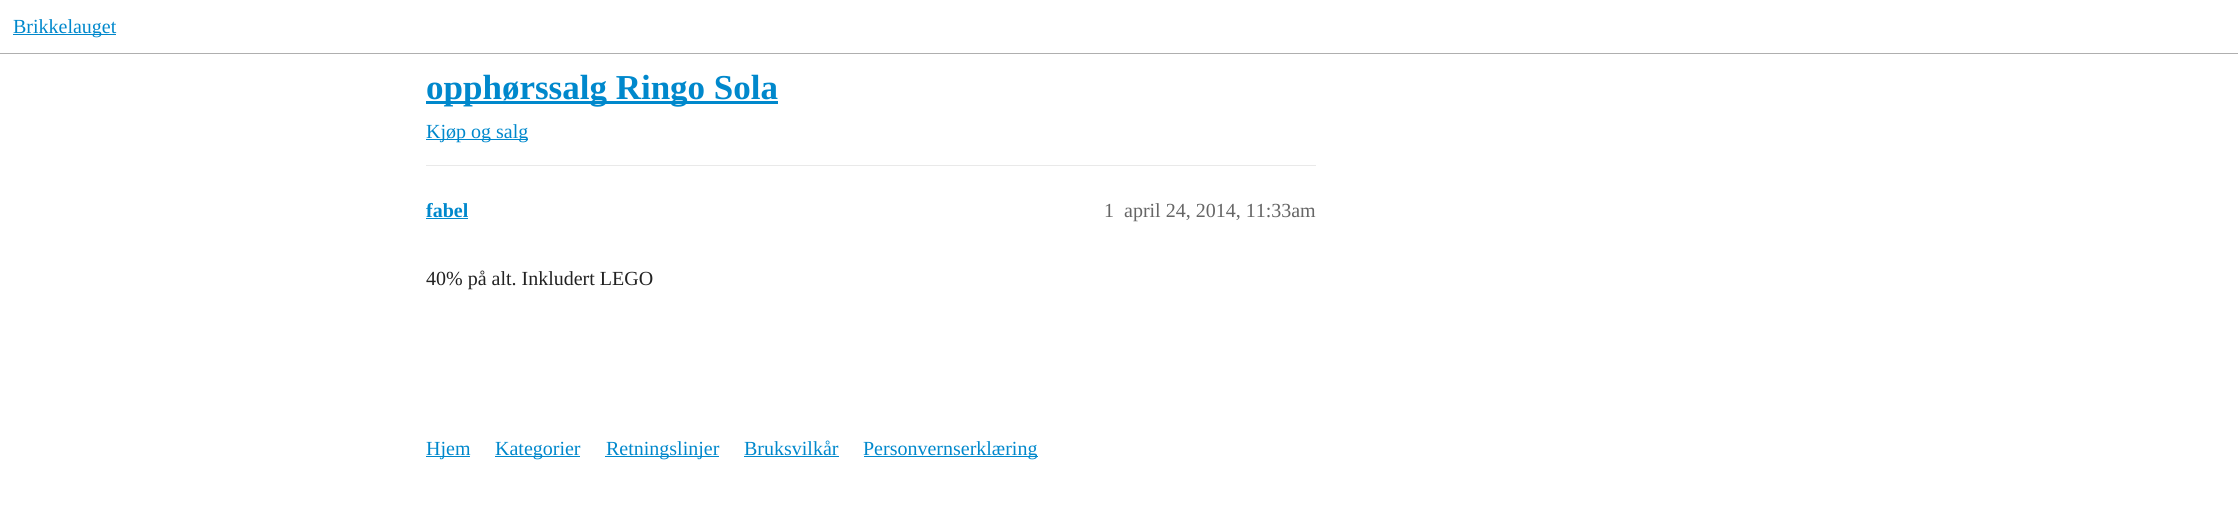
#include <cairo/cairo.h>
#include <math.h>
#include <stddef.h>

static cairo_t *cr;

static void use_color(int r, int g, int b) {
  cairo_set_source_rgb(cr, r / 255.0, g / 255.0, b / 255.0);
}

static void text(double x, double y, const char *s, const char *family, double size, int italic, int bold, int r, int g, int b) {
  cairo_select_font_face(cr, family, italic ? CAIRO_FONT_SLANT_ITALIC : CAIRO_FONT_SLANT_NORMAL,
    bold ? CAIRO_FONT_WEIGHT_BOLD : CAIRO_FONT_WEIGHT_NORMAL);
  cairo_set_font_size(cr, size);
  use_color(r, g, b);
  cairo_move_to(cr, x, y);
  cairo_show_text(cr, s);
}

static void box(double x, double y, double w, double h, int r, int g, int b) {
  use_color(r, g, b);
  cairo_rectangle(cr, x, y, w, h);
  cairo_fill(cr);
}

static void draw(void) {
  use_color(255, 255, 255);
  cairo_paint(cr);
  box(0, 53, 2238, 1, 175, 175, 175);
  box(13, 34, 103, 1, 0, 136, 204);
  box(426, 101, 352, 3, 0, 136, 204);
  box(426, 139, 102, 1, 0, 136, 204);
  box(426, 165, 890, 1, 233, 233, 233);
  box(426, 218, 42, 1, 0, 136, 204);
  box(426, 456, 44, 1, 0, 136, 204);
  box(495, 456, 85, 1, 0, 136, 204);
  box(605, 456, 114, 1, 0, 136, 204);
  box(744, 456, 95, 1, 0, 136, 204);
  box(864, 456, 174, 1, 0, 136, 204);
  text(13, 33, "Brikkelauget", "Liberation Serif", 20, 0, 0, 0, 136, 204);
  text(426, 99, "opphørssalg Ringo Sola", "Liberation Serif", 35, 0, 1, 0, 136, 204);
  text(426, 138, "Kjøp og salg", "Liberation Serif", 20, 0, 0, 0, 136, 204);
  text(426, 217, "fabel", "Liberation Serif", 20, 0, 1, 0, 136, 204);
  text(1104, 217, "1", "Liberation Serif", 20, 0, 0, 102, 102, 102);
  text(1124, 217, "april 24, 2014, 11:33am", "Liberation Serif", 20, 0, 0, 102, 102, 102);
  text(426, 285, "40% på alt. Inkludert LEGO", "Liberation Serif", 20, 0, 0, 34, 34, 34);
  text(426, 455, "Hjem", "Liberation Serif", 20, 0, 0, 0, 136, 204);
  text(495, 455, "Kategorier", "Liberation Serif", 20, 0, 0, 0, 136, 204);
  text(606, 455, "Retningslinjer", "Liberation Serif", 20, 0, 0, 0, 136, 204);
  text(744, 455, "Bruksvilkår", "Liberation Serif", 20, 0, 0, 0, 136, 204);
  text(863, 455, "Personvernserklæring", "Liberation Serif", 20, 0, 0, 0, 136, 204);
}

int main(void) {
  cairo_surface_t *surface = cairo_image_surface_create(CAIRO_FORMAT_RGB24, 2238, 505);
  cr = cairo_create(surface);
  cairo_font_options_t *options = cairo_font_options_create();
  cairo_font_options_set_hint_metrics(options, CAIRO_HINT_METRICS_OFF);
  cairo_font_options_set_hint_style(options, CAIRO_HINT_STYLE_NONE);
  cairo_set_font_options(cr, options);
  cairo_set_miter_limit(cr, 4);
  draw();
  cairo_surface_write_to_png(surface, "out.png");
  cairo_font_options_destroy(options);
  cairo_destroy(cr);
  cairo_surface_destroy(surface);
  return 0;
}
